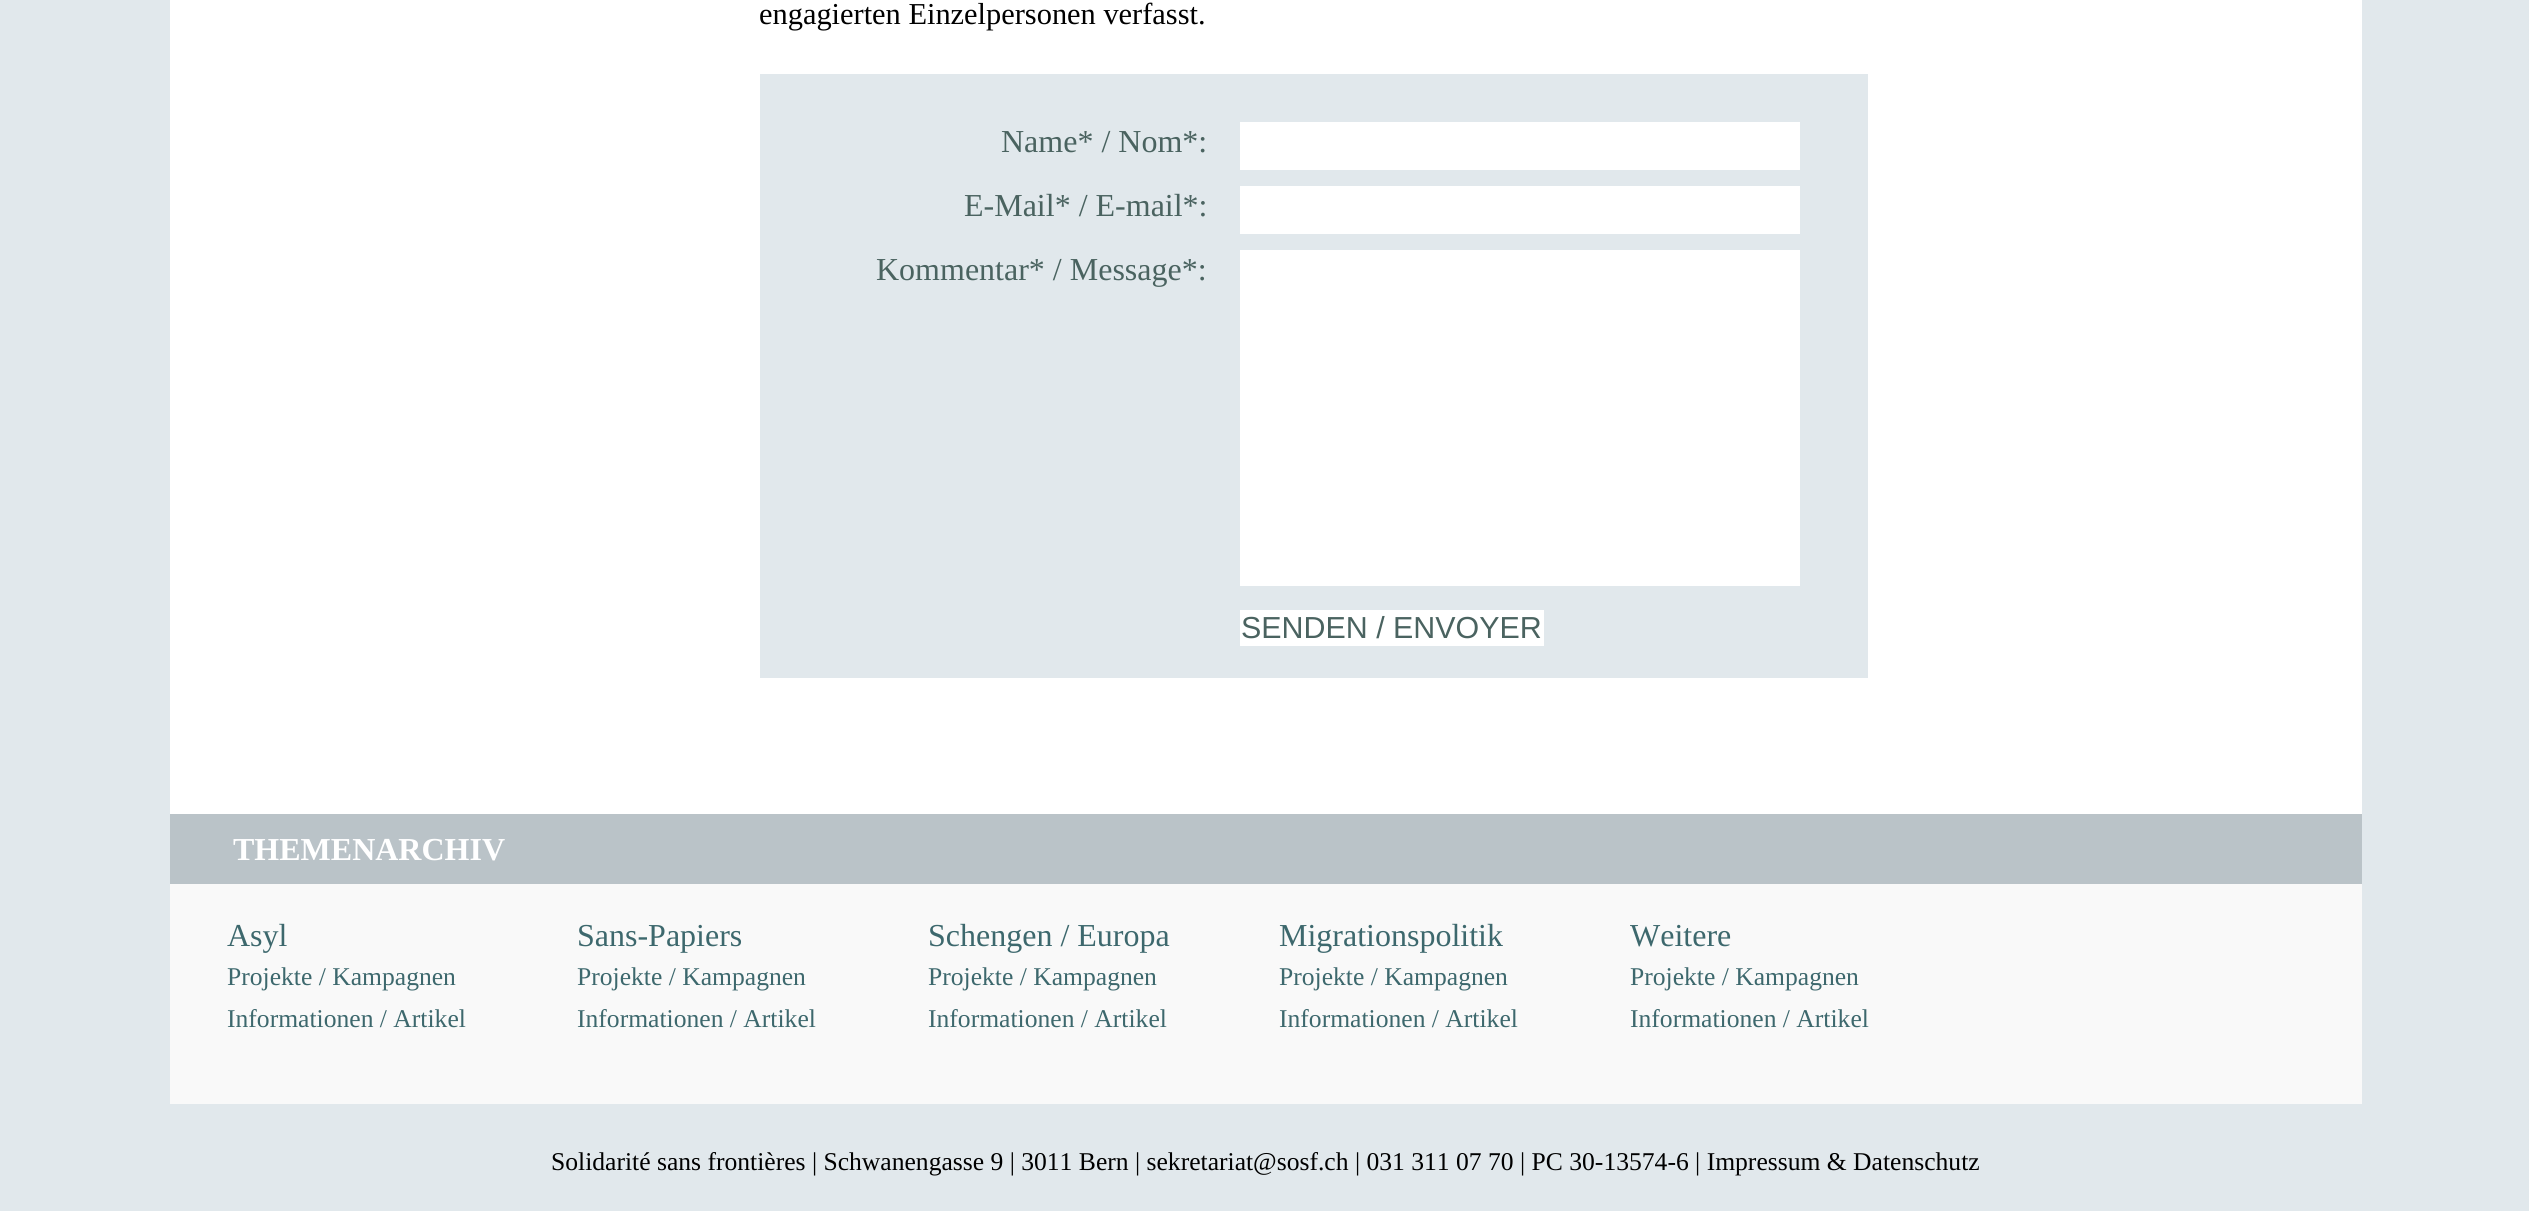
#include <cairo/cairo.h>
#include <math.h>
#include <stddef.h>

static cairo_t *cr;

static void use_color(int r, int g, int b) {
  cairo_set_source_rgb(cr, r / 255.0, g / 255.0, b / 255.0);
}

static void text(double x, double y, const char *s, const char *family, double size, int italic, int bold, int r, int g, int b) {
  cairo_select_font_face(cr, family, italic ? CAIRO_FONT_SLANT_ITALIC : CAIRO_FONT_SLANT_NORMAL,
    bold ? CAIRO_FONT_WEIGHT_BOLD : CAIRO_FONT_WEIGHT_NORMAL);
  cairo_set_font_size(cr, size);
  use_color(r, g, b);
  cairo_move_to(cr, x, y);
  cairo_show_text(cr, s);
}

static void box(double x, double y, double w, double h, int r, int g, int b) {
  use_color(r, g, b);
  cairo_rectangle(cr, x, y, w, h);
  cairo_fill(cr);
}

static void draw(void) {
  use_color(225, 232, 236);
  cairo_paint(cr);
  box(170, 0, 2192, 814, 255, 255, 255);
  box(760, 74, 1108, 604, 225, 232, 236);
  box(1240, 122, 560, 48, 255, 255, 255);
  box(1240, 186, 560, 48, 255, 255, 255);
  box(1240, 250, 560, 336, 255, 255, 255);
  box(1240, 610, 304, 36, 255, 255, 255);
  box(170, 884, 2192, 220, 249, 249, 249);
  box(170, 814, 2192, 70, 186, 195, 200);
  text(759, 24, "engagierten Einzelpersonen verfasst.", "Liberation Serif", 30.4, 0, 0, 0, 0, 0);
  text(1001, 152, "Name* / Nom*:", "Liberation Serif", 32, 0, 0, 74, 99, 96);
  text(964, 216, "E-Mail* / E-mail*:", "Liberation Serif", 32, 0, 0, 74, 99, 96);
  text(876, 280, "Kommentar* / Message*:", "Liberation Serif", 32, 0, 0, 74, 99, 96);
  text(1241, 638, "SENDEN / ENVOYER", "Liberation Sans", 30.4, 0, 0, 74, 99, 96);
  text(233, 860, "THEMENARCHIV", "Liberation Serif", 32, 0, 1, 255, 255, 255);
  text(227, 946, "Asyl", "Liberation Serif", 32, 0, 0, 61, 104, 109);
  text(227, 985, "Projekte / Kampagnen", "Liberation Serif", 25.6, 0, 0, 61, 104, 109);
  text(227, 1027, "Informationen / Artikel", "Liberation Serif", 25.6, 0, 0, 61, 104, 109);
  text(577, 946, "Sans-Papiers", "Liberation Serif", 32, 0, 0, 61, 104, 109);
  text(577, 985, "Projekte / Kampagnen", "Liberation Serif", 25.6, 0, 0, 61, 104, 109);
  text(577, 1027, "Informationen / Artikel", "Liberation Serif", 25.6, 0, 0, 61, 104, 109);
  text(928, 946, "Schengen / Europa", "Liberation Serif", 32, 0, 0, 61, 104, 109);
  text(928, 985, "Projekte / Kampagnen", "Liberation Serif", 25.6, 0, 0, 61, 104, 109);
  text(928, 1027, "Informationen / Artikel", "Liberation Serif", 25.6, 0, 0, 61, 104, 109);
  text(1279, 946, "Migrationspolitik", "Liberation Serif", 32, 0, 0, 61, 104, 109);
  text(1279, 985, "Projekte / Kampagnen", "Liberation Serif", 25.6, 0, 0, 61, 104, 109);
  text(1279, 1027, "Informationen / Artikel", "Liberation Serif", 25.6, 0, 0, 61, 104, 109);
  text(1630, 946, "Weitere", "Liberation Serif", 32, 0, 0, 61, 104, 109);
  text(1630, 985, "Projekte / Kampagnen", "Liberation Serif", 25.6, 0, 0, 61, 104, 109);
  text(1630, 1027, "Informationen / Artikel", "Liberation Serif", 25.6, 0, 0, 61, 104, 109);
  text(551, 1170, "Solidarité sans frontières | Schwanengasse 9 | 3011 Bern | sekretariat@sosf.ch | 031 311 07 70 | PC 30-13574-6 | Impressum & Datenschutz", "Liberation Serif", 25.6, 0, 0, 0, 0, 0);
}

int main(void) {
  cairo_surface_t *surface = cairo_image_surface_create(CAIRO_FORMAT_RGB24, 2529, 1211);
  cr = cairo_create(surface);
  cairo_font_options_t *options = cairo_font_options_create();
  cairo_font_options_set_hint_metrics(options, CAIRO_HINT_METRICS_OFF);
  cairo_font_options_set_hint_style(options, CAIRO_HINT_STYLE_NONE);
  cairo_set_font_options(cr, options);
  cairo_set_miter_limit(cr, 4);
  draw();
  cairo_surface_write_to_png(surface, "out.png");
  cairo_font_options_destroy(options);
  cairo_destroy(cr);
  cairo_surface_destroy(surface);
  return 0;
}
